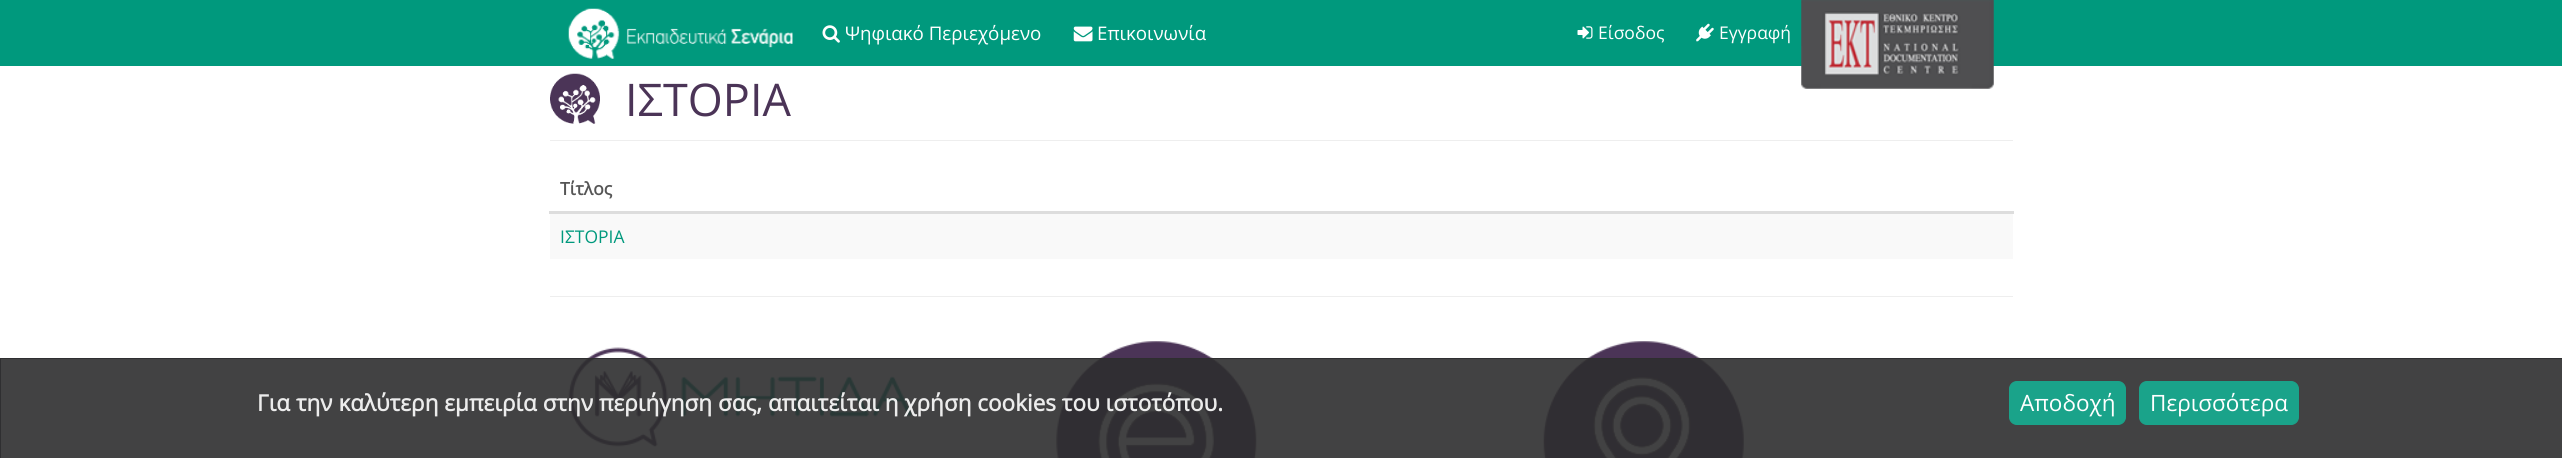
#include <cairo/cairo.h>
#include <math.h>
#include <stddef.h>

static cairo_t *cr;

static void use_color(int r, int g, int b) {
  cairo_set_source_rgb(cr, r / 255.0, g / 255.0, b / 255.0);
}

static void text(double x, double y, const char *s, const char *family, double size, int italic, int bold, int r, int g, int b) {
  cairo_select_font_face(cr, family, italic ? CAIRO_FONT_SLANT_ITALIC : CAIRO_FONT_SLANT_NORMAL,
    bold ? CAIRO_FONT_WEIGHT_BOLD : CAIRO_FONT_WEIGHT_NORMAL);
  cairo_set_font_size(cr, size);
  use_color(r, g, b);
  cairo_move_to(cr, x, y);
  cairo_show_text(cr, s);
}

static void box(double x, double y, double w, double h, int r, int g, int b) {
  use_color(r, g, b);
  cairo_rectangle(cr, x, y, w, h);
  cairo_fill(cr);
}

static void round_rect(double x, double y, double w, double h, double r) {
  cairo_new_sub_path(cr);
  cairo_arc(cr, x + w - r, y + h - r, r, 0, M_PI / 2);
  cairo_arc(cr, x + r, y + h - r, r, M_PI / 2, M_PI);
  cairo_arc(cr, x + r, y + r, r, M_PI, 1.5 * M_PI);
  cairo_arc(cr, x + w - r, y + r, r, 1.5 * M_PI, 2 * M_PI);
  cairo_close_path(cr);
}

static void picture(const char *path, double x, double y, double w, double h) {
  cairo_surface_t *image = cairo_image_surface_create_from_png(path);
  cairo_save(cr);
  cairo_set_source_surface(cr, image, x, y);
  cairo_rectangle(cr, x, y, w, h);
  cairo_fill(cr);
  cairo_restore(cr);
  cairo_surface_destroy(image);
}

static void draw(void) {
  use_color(255, 255, 255);
  cairo_paint(cr);
  box(0, 0, 2562, 66, 0, 153, 125);
  picture("img_01.png", 568, 8, 225, 51);
  picture("img_02.png", 822, 25, 18, 18);
  picture("img_03.png", 1073, 26, 20, 16);
  picture("img_04.png", 1577, 26, 16, 13);
  picture("img_05.png", 1696, 23, 18, 19);
  picture("img_06.png", 1801, 0, 193, 89);
  box(550, 140, 1463, 1, 238, 238, 238);
  picture("img_07.png", 550, 73, 50, 51);
  box(550, 296, 1463, 1, 238, 238, 238);
  box(549, 211, 1465, 3, 221, 221, 221);
  box(550, 214, 1463, 45, 249, 249, 249);
  picture("img_08.png", 568, 347, 344, 100);
  picture("img_09.png", 1056, 341, 201, 117);
  picture("img_10.png", 1543, 341, 201, 117);
  cairo_set_source_rgba(cr, 0.18, 0.18, 0.184, 0.9);
  cairo_rectangle(cr, 0, 358, 2562, 100);
  cairo_fill(cr);
  cairo_rectangle(cr, 0.5, 358.5, 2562, 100);
  cairo_set_line_width(cr, 1);
  cairo_stroke(cr);
  use_color(26, 163, 138);
  round_rect(2009.5, 381.5, 116, 43, 7.5);
  cairo_fill_preserve(cr);
  cairo_stroke(cr);
  round_rect(2139.5, 381.5, 159, 43, 7.5);
  cairo_fill_preserve(cr);
  cairo_stroke(cr);
  text(845, 40, "Ψηφιακό Περιεχόμενο", "Open Sans", 18.75, 0, 0, 255, 255, 255);
  text(1097, 40, "Επικοινωνία", "Open Sans", 18.75, 0, 0, 255, 255, 255);
  text(1598, 39, "Είσοδος", "Open Sans", 17.5, 0, 0, 255, 255, 255);
  text(1719, 39, "Εγγραφή", "Open Sans", 17.5, 0, 0, 255, 255, 255);
  text(625, 116, "ΙΣΤΟΡΙΑ", "Open Sans", 45, 0, 0, 75, 52, 87);
  text(560, 195, "Τίτλος", "Open Sans", 17.5, 0, 1, 85, 85, 85);
  text(560, 243, "ΙΣΤΟΡΙΑ", "Open Sans", 17.5, 0, 0, 0, 153, 125);
  text(257, 411, "Για την καλύτερη εμπειρία στην περιήγηση σας, απαιτείται η χρήση cookies του ιστοτόπου.", "Open Sans", 22.5, 0, 1, 236, 236, 236);
  text(2020, 411, "Αποδοχή", "Open Sans", 22.5, 0, 0, 255, 255, 255);
  text(2150, 411, "Περισσότερα", "Open Sans", 22.5, 0, 0, 255, 255, 255);
}

int main(void) {
  cairo_surface_t *surface = cairo_image_surface_create(CAIRO_FORMAT_RGB24, 2562, 458);
  cr = cairo_create(surface);
  cairo_font_options_t *options = cairo_font_options_create();
  cairo_font_options_set_hint_metrics(options, CAIRO_HINT_METRICS_OFF);
  cairo_font_options_set_hint_style(options, CAIRO_HINT_STYLE_NONE);
  cairo_set_font_options(cr, options);
  cairo_set_miter_limit(cr, 4);
  draw();
  cairo_surface_write_to_png(surface, "out.png");
  cairo_font_options_destroy(options);
  cairo_destroy(cr);
  cairo_surface_destroy(surface);
  return 0;
}
